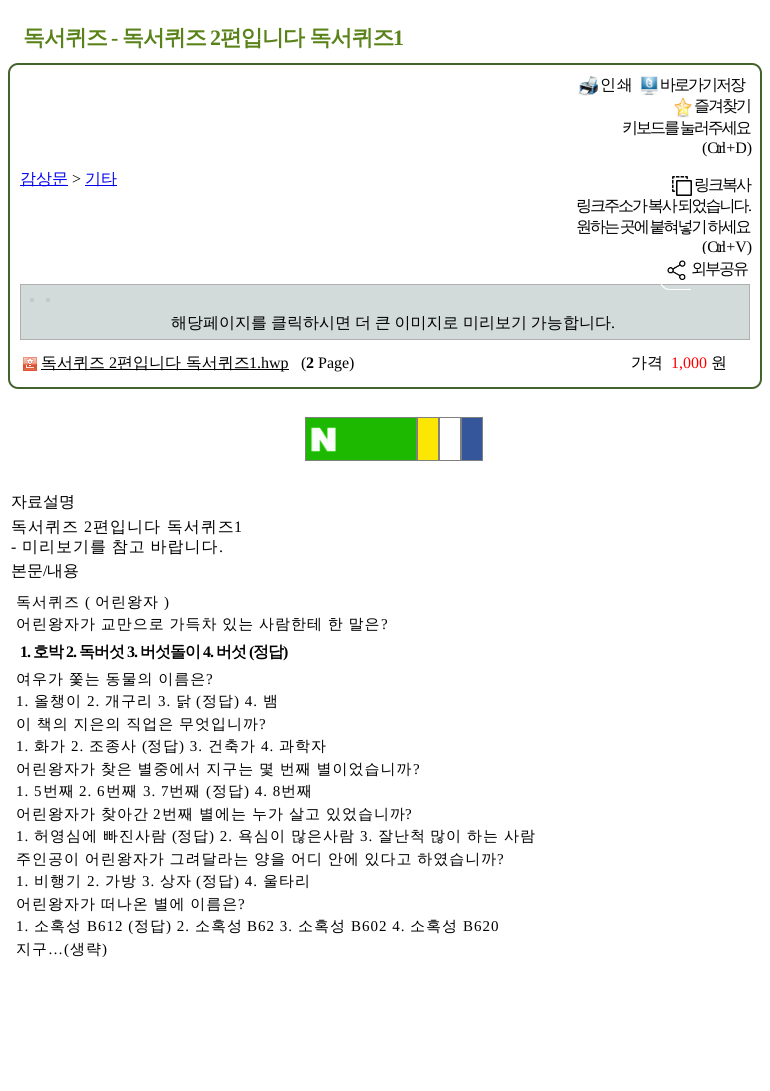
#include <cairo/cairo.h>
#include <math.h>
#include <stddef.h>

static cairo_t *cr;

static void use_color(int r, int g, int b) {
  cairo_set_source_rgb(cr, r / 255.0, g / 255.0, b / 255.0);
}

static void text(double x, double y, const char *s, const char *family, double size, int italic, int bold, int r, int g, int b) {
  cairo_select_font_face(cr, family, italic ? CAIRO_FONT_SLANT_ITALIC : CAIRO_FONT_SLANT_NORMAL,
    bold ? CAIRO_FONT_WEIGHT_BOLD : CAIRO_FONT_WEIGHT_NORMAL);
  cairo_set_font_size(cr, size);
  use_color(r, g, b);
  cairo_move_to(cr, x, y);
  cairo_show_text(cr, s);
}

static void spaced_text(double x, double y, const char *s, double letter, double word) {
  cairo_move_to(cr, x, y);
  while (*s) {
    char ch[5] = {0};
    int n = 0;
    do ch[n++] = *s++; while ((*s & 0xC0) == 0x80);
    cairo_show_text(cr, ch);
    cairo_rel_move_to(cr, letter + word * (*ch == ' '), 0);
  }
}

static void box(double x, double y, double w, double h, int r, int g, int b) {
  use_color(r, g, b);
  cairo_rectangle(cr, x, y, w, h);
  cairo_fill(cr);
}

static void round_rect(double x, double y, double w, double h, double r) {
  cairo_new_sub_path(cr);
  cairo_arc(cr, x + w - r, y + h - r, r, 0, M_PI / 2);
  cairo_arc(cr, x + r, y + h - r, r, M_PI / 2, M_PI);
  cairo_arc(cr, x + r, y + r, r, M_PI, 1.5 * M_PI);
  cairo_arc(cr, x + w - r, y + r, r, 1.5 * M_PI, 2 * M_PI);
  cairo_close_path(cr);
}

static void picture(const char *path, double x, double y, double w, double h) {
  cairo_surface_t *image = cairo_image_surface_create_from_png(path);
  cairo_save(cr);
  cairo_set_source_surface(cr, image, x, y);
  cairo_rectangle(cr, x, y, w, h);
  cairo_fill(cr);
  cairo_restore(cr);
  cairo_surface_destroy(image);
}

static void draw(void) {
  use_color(255, 255, 255);
  cairo_paint(cr);
  round_rect(9, 64, 752, 324, 9);
  use_color(68, 98, 44);
  cairo_stroke(cr);
  box(20, 185, 48, 1, 0, 0, 238);
  box(85, 185, 32, 1, 0, 0, 238);
  picture("img_01.png", 578, 76, 20, 20);
  picture("img_02.png", 640, 76, 18, 20);
  picture("img_03.png", 674, 98, 18, 20);
  picture("img_04.png", 672, 176, 20, 20);
  cairo_rectangle(cr, 20.5, 284.5, 729, 55);
  use_color(175, 175, 175);
  cairo_set_line_width(cr, 1);
  cairo_stroke(cr);
  box(21, 285, 728, 54, 210, 218, 218);
  use_color(255, 255, 255);
  cairo_set_fill_rule(cr, CAIRO_FILL_RULE_EVEN_ODD);
  cairo_new_path(cr);
  cairo_move_to(cr, 670, 250);
  cairo_line_to(cr, 691, 250);
  cairo_line_to(cr, 691, 290);
  cairo_line_to(cr, 670, 290);
  cairo_curve_to(cr, 664, 290, 660, 286, 660, 280);
  cairo_line_to(cr, 660, 260);
  cairo_curve_to(cr, 660, 254, 664, 250, 670, 250);
  cairo_close_path(cr);
  cairo_move_to(cr, 670, 251);
  cairo_line_to(cr, 691, 251);
  cairo_line_to(cr, 691, 289);
  cairo_line_to(cr, 670, 289);
  cairo_curve_to(cr, 665, 289, 661, 285, 661, 280);
  cairo_line_to(cr, 661, 260);
  cairo_curve_to(cr, 661, 255, 665, 251, 670, 251);
  cairo_close_path(cr);
  cairo_fill(cr);
  picture("img_05.png", 667, 260, 19, 20);
  box(30, 298, 4, 4, 194, 202, 202);
  box(46, 298, 4, 4, 194, 202, 202);
  picture("img_06.png", 23, 357, 14, 14);
  box(41, 369, 248, 1, 0, 0, 0);
  use_color(28, 185, 0);
  cairo_rectangle(cr, 305.5, 417.5, 111, 43);
  cairo_fill_preserve(cr);
  use_color(128, 128, 128);
  cairo_stroke(cr);
  picture("img_07.png", 311, 427, 25, 25);
  use_color(252, 230, 4);
  cairo_rectangle(cr, 417.5, 417.5, 21, 43);
  cairo_fill_preserve(cr);
  use_color(128, 128, 128);
  cairo_stroke(cr);
  cairo_rectangle(cr, 439.5, 417.5, 21, 43);
  cairo_stroke(cr);
  use_color(53, 86, 154);
  cairo_rectangle(cr, 461.5, 417.5, 21, 43);
  cairo_fill_preserve(cr);
  use_color(128, 128, 128);
  cairo_stroke(cr);
  cairo_select_font_face(cr, "WenQuanYi Zen Hei", CAIRO_FONT_SLANT_NORMAL, CAIRO_FONT_WEIGHT_BOLD);
  cairo_set_font_size(cr, 22);
  use_color(89, 130, 25);
  spaced_text(23, 45, "독서퀴즈", -1, 0);
  cairo_select_font_face(cr, "Liberation Serif", CAIRO_FONT_SLANT_NORMAL, CAIRO_FONT_WEIGHT_BOLD);
  spaced_text(111, 45, "-", -1, 0);
  cairo_select_font_face(cr, "WenQuanYi Zen Hei", CAIRO_FONT_SLANT_NORMAL, CAIRO_FONT_WEIGHT_BOLD);
  spaced_text(122, 45, "독서퀴즈", -1, 0);
  cairo_select_font_face(cr, "Liberation Serif", CAIRO_FONT_SLANT_NORMAL, CAIRO_FONT_WEIGHT_BOLD);
  spaced_text(210, 45, "2", -1, 0);
  cairo_select_font_face(cr, "WenQuanYi Zen Hei", CAIRO_FONT_SLANT_NORMAL, CAIRO_FONT_WEIGHT_BOLD);
  spaced_text(220, 45, "편입니다 독서퀴즈", -1, 0);
  cairo_select_font_face(cr, "Liberation Serif", CAIRO_FONT_SLANT_NORMAL, CAIRO_FONT_WEIGHT_BOLD);
  spaced_text(393, 45, "1", -1, 0);
  text(20, 184, "감상문", "WenQuanYi Zen Hei Medium", 16, 0, 0, 0, 0, 238);
  text(72, 184, ">", "Liberation Serif", 16, 0, 0, 0, 0, 0);
  text(85, 184, "기타", "WenQuanYi Zen Hei Medium", 16, 0, 0, 0, 0, 238);
  use_color(0, 0, 0);
  spaced_text(600, 90, "인 쇄", -2, 0);
  spaced_text(660, 90, "바로가기저장", -2, 0);
  spaced_text(694, 111, "즐겨찾기", -2, 0);
  spaced_text(622, 133, "키보드를 눌러주세요", -2, -1);
  cairo_select_font_face(cr, "Liberation Serif", CAIRO_FONT_SLANT_NORMAL, CAIRO_FONT_WEIGHT_NORMAL);
  spaced_text(702, 153, "( Ctrl + D )", -2, 0);
  cairo_select_font_face(cr, "WenQuanYi Zen Hei Medium", CAIRO_FONT_SLANT_NORMAL, CAIRO_FONT_WEIGHT_NORMAL);
  spaced_text(694, 190, "링크복사", -2, 0);
  spaced_text(576, 211, "링크주소가 복사 되었습니다", -2, -1);
  cairo_select_font_face(cr, "Liberation Serif", CAIRO_FONT_SLANT_NORMAL, CAIRO_FONT_WEIGHT_NORMAL);
  spaced_text(748, 211, ".", -2, 0);
  cairo_select_font_face(cr, "WenQuanYi Zen Hei Medium", CAIRO_FONT_SLANT_NORMAL, CAIRO_FONT_WEIGHT_NORMAL);
  spaced_text(576, 232, "원하는 곳에 붙혀넣기 하세요", -2, -1);
  cairo_select_font_face(cr, "Liberation Serif", CAIRO_FONT_SLANT_NORMAL, CAIRO_FONT_WEIGHT_NORMAL);
  spaced_text(702, 252, "( Ctrl + V )", -2, 0);
  use_color(255, 255, 255);
  cairo_new_path(cr);
  cairo_move_to(cr, 691, 254);
  cairo_line_to(cr, 742, 254);
  cairo_curve_to(cr, 751, 256, 750, 265, 750, 272);
  cairo_curve_to(cr, 750, 287, 734, 283, 724, 283);
  cairo_line_to(cr, 691, 283);
  cairo_close_path(cr);
  cairo_move_to(cr, 691, 255);
  cairo_line_to(cr, 740, 255);
  cairo_curve_to(cr, 745, 255, 749, 259, 749, 264);
  cairo_line_to(cr, 749, 273);
  cairo_curve_to(cr, 749, 278, 745, 282, 740, 282);
  cairo_line_to(cr, 691, 282);
  cairo_close_path(cr);
  cairo_fill(cr);
  cairo_select_font_face(cr, "WenQuanYi Zen Hei Medium", CAIRO_FONT_SLANT_NORMAL, CAIRO_FONT_WEIGHT_NORMAL);
  use_color(0, 0, 0);
  spaced_text(691, 274, "외부공유", -2, 0);
  text(171, 328, "해당페이지를", "WenQuanYi Zen Hei Medium", 16, 0, 0, 0, 0, 0);
  text(271, 328, "클릭하시면", "WenQuanYi Zen Hei Medium", 16, 0, 0, 0, 0, 0);
  spaced_text(355, 328, "더 큰 이미지로", 0, -1);
  spaced_text(463, 328, "미리보기 가능", 0, -1);
  text(563, 328, "합니다", "WenQuanYi Zen Hei Medium", 16, 0, 0, 0, 0, 0);
  text(611, 328, ".", "Liberation Serif", 16, 0, 0, 0, 0, 0);
  text(41, 368, "독서퀴즈", "WenQuanYi Zen Hei Medium", 16, 0, 0, 0, 0, 0);
  text(109, 368, "2", "Liberation Serif", 16, 0, 0, 0, 0, 0);
  text(117, 368, "편입니다 독서퀴즈", "WenQuanYi Zen Hei Medium", 16, 0, 0, 0, 0, 0);
  text(249, 368, "1.hwp", "Liberation Serif", 16, 0, 0, 0, 0, 0);
  text(301, 368, "(", "Liberation Serif", 16, 0, 0, 0, 0, 0);
  text(306, 368, "2", "Liberation Serif", 16, 0, 1, 0, 0, 0);
  text(318, 368, "Page)", "Liberation Serif", 16, 0, 0, 0, 0, 0);
  text(631, 368, "가격", "WenQuanYi Zen Hei Medium", 16, 0, 0, 0, 0, 0);
  text(671, 368, "1,000", "Liberation Serif", 16, 0, 0, 255, 0, 0);
  text(711, 368, "원", "WenQuanYi Zen Hei Medium", 16, 0, 0, 0, 0, 0);
  text(11, 507, "자료설명", "WenQuanYi Zen Hei Medium", 16, 0, 0, 0, 0, 0);
  spaced_text(11, 532, "독서퀴즈", 1, 0);
  cairo_select_font_face(cr, "Liberation Serif", CAIRO_FONT_SLANT_NORMAL, CAIRO_FONT_WEIGHT_NORMAL);
  spaced_text(84, 532, "2", 1, 0);
  cairo_select_font_face(cr, "WenQuanYi Zen Hei Medium", CAIRO_FONT_SLANT_NORMAL, CAIRO_FONT_WEIGHT_NORMAL);
  spaced_text(93, 532, "편입니다 독서퀴즈", 1, 0);
  cairo_select_font_face(cr, "Liberation Serif", CAIRO_FONT_SLANT_NORMAL, CAIRO_FONT_WEIGHT_NORMAL);
  spaced_text(234, 532, "1", 1, 0);
  spaced_text(11, 552, "-", 1, 0);
  cairo_select_font_face(cr, "WenQuanYi Zen Hei Medium", CAIRO_FONT_SLANT_NORMAL, CAIRO_FONT_WEIGHT_NORMAL);
  spaced_text(22, 552, "미리보기를 참고 바랍니다", 1, -1);
  cairo_select_font_face(cr, "Liberation Serif", CAIRO_FONT_SLANT_NORMAL, CAIRO_FONT_WEIGHT_NORMAL);
  spaced_text(219, 552, ".", 1, 0);
  text(11, 576, "본문", "WenQuanYi Zen Hei Medium", 16, 0, 0, 0, 0, 0);
  text(43, 576, "/", "Liberation Serif", 16, 0, 0, 0, 0, 0);
  text(47, 576, "내용", "WenQuanYi Zen Hei Medium", 16, 0, 0, 0, 0, 0);
  cairo_set_font_size(cr, 15);
  spaced_text(16, 607, "독서퀴즈", 1, 0);
  cairo_select_font_face(cr, "Liberation Serif", CAIRO_FONT_SLANT_NORMAL, CAIRO_FONT_WEIGHT_NORMAL);
  spaced_text(85, 607, "(", 1, 0);
  cairo_select_font_face(cr, "WenQuanYi Zen Hei Medium", CAIRO_FONT_SLANT_NORMAL, CAIRO_FONT_WEIGHT_NORMAL);
  spaced_text(95, 607, "어린왕자", 1, 0);
  cairo_select_font_face(cr, "Liberation Serif", CAIRO_FONT_SLANT_NORMAL, CAIRO_FONT_WEIGHT_NORMAL);
  spaced_text(164, 607, ")", 1, 0);
  cairo_select_font_face(cr, "WenQuanYi Zen Hei Medium", CAIRO_FONT_SLANT_NORMAL, CAIRO_FONT_WEIGHT_NORMAL);
  spaced_text(16, 629, "어린왕자가 교만으로 가득차 있는 사람한테 한 말은", 1, -0.75);
  cairo_select_font_face(cr, "Liberation Serif", CAIRO_FONT_SLANT_NORMAL, CAIRO_FONT_WEIGHT_NORMAL);
  spaced_text(381, 629, "?", 1, 0);
  cairo_select_font_face(cr, "Liberation Serif", CAIRO_FONT_SLANT_NORMAL, CAIRO_FONT_WEIGHT_BOLD);
  cairo_set_font_size(cr, 16);
  spaced_text(20, 657, "1.", -1, 0);
  cairo_select_font_face(cr, "WenQuanYi Zen Hei", CAIRO_FONT_SLANT_NORMAL, CAIRO_FONT_WEIGHT_BOLD);
  spaced_text(33, 657, "호박", -1, 0);
  cairo_select_font_face(cr, "Liberation Serif", CAIRO_FONT_SLANT_NORMAL, CAIRO_FONT_WEIGHT_BOLD);
  spaced_text(66, 657, "2.", -1, 0);
  cairo_select_font_face(cr, "WenQuanYi Zen Hei", CAIRO_FONT_SLANT_NORMAL, CAIRO_FONT_WEIGHT_BOLD);
  spaced_text(79, 657, "독버섯", -1, 0);
  cairo_select_font_face(cr, "Liberation Serif", CAIRO_FONT_SLANT_NORMAL, CAIRO_FONT_WEIGHT_BOLD);
  spaced_text(127, 657, "3.", -1, 0);
  cairo_select_font_face(cr, "WenQuanYi Zen Hei", CAIRO_FONT_SLANT_NORMAL, CAIRO_FONT_WEIGHT_BOLD);
  spaced_text(140, 657, "버섯돌이", -1, 0);
  cairo_select_font_face(cr, "Liberation Serif", CAIRO_FONT_SLANT_NORMAL, CAIRO_FONT_WEIGHT_BOLD);
  spaced_text(203, 657, "4.", -1, 0);
  cairo_select_font_face(cr, "WenQuanYi Zen Hei", CAIRO_FONT_SLANT_NORMAL, CAIRO_FONT_WEIGHT_BOLD);
  spaced_text(216, 657, "버섯", -1, 0);
  cairo_select_font_face(cr, "Liberation Serif", CAIRO_FONT_SLANT_NORMAL, CAIRO_FONT_WEIGHT_BOLD);
  spaced_text(249, 657, "(", -1, 0);
  cairo_select_font_face(cr, "WenQuanYi Zen Hei", CAIRO_FONT_SLANT_NORMAL, CAIRO_FONT_WEIGHT_BOLD);
  spaced_text(253, 657, "정답", -1, 0);
  cairo_select_font_face(cr, "Liberation Serif", CAIRO_FONT_SLANT_NORMAL, CAIRO_FONT_WEIGHT_BOLD);
  spaced_text(283, 657, ")", -1, 0);
  cairo_select_font_face(cr, "WenQuanYi Zen Hei Medium", CAIRO_FONT_SLANT_NORMAL, CAIRO_FONT_WEIGHT_NORMAL);
  cairo_set_font_size(cr, 15);
  spaced_text(16, 684, "여우가 쫓는 동물의 이름은", 1, -0.75);
  cairo_select_font_face(cr, "Liberation Serif", CAIRO_FONT_SLANT_NORMAL, CAIRO_FONT_WEIGHT_NORMAL);
  spaced_text(206, 684, "?", 1, 0);
  spaced_text(16, 706, "1.", 1, 0);
  cairo_select_font_face(cr, "WenQuanYi Zen Hei Medium", CAIRO_FONT_SLANT_NORMAL, CAIRO_FONT_WEIGHT_NORMAL);
  spaced_text(34, 706, "올챙이", 1, 0);
  cairo_select_font_face(cr, "Liberation Serif", CAIRO_FONT_SLANT_NORMAL, CAIRO_FONT_WEIGHT_NORMAL);
  spaced_text(87, 706, "2.", 1, 0);
  cairo_select_font_face(cr, "WenQuanYi Zen Hei Medium", CAIRO_FONT_SLANT_NORMAL, CAIRO_FONT_WEIGHT_NORMAL);
  spaced_text(105, 706, "개구리", 1, 0);
  cairo_select_font_face(cr, "Liberation Serif", CAIRO_FONT_SLANT_NORMAL, CAIRO_FONT_WEIGHT_NORMAL);
  spaced_text(158, 706, "3.", 1, 0);
  cairo_select_font_face(cr, "WenQuanYi Zen Hei Medium", CAIRO_FONT_SLANT_NORMAL, CAIRO_FONT_WEIGHT_NORMAL);
  spaced_text(176, 706, "닭", 1, 0);
  cairo_select_font_face(cr, "Liberation Serif", CAIRO_FONT_SLANT_NORMAL, CAIRO_FONT_WEIGHT_NORMAL);
  spaced_text(196, 706, "(", 1, 0);
  cairo_select_font_face(cr, "WenQuanYi Zen Hei Medium", CAIRO_FONT_SLANT_NORMAL, CAIRO_FONT_WEIGHT_NORMAL);
  spaced_text(202, 706, "정답", 1, 0);
  cairo_select_font_face(cr, "Liberation Serif", CAIRO_FONT_SLANT_NORMAL, CAIRO_FONT_WEIGHT_NORMAL);
  spaced_text(234, 706, ") 4.", 1, 0);
  cairo_select_font_face(cr, "WenQuanYi Zen Hei Medium", CAIRO_FONT_SLANT_NORMAL, CAIRO_FONT_WEIGHT_NORMAL);
  spaced_text(263, 706, "뱀", 1, 0);
  spaced_text(16, 729, "이 책의 지은의 직업은 무엇입니까", 1, -0.75);
  cairo_select_font_face(cr, "Liberation Serif", CAIRO_FONT_SLANT_NORMAL, CAIRO_FONT_WEIGHT_NORMAL);
  spaced_text(259, 729, "?", 1, 0);
  spaced_text(16, 751, "1.", 1, 0);
  cairo_select_font_face(cr, "WenQuanYi Zen Hei Medium", CAIRO_FONT_SLANT_NORMAL, CAIRO_FONT_WEIGHT_NORMAL);
  spaced_text(34, 751, "화가", 1, 0);
  cairo_select_font_face(cr, "Liberation Serif", CAIRO_FONT_SLANT_NORMAL, CAIRO_FONT_WEIGHT_NORMAL);
  spaced_text(71, 751, "2.", 1, 0);
  cairo_select_font_face(cr, "WenQuanYi Zen Hei Medium", CAIRO_FONT_SLANT_NORMAL, CAIRO_FONT_WEIGHT_NORMAL);
  spaced_text(89, 751, "조종사", 1, 0);
  cairo_select_font_face(cr, "Liberation Serif", CAIRO_FONT_SLANT_NORMAL, CAIRO_FONT_WEIGHT_NORMAL);
  spaced_text(142, 751, "(", 1, 0);
  cairo_select_font_face(cr, "WenQuanYi Zen Hei Medium", CAIRO_FONT_SLANT_NORMAL, CAIRO_FONT_WEIGHT_NORMAL);
  spaced_text(147, 751, "정답", 1, 0);
  cairo_select_font_face(cr, "Liberation Serif", CAIRO_FONT_SLANT_NORMAL, CAIRO_FONT_WEIGHT_NORMAL);
  spaced_text(179, 751, ") 3.", 1, 0);
  cairo_select_font_face(cr, "WenQuanYi Zen Hei Medium", CAIRO_FONT_SLANT_NORMAL, CAIRO_FONT_WEIGHT_NORMAL);
  spaced_text(208, 751, "건축가", 1, 0);
  cairo_select_font_face(cr, "Liberation Serif", CAIRO_FONT_SLANT_NORMAL, CAIRO_FONT_WEIGHT_NORMAL);
  spaced_text(261, 751, "4.", 1, 0);
  cairo_select_font_face(cr, "WenQuanYi Zen Hei Medium", CAIRO_FONT_SLANT_NORMAL, CAIRO_FONT_WEIGHT_NORMAL);
  spaced_text(279, 751, "과학자", 1, 0);
  spaced_text(16, 774, "어린왕자가 찾은 별중에서 지구는 몇 번째 별이었습니까", 1, -0.75);
  cairo_select_font_face(cr, "Liberation Serif", CAIRO_FONT_SLANT_NORMAL, CAIRO_FONT_WEIGHT_NORMAL);
  spaced_text(413, 774, "?", 1, 0);
  spaced_text(16, 796, "1. 5", 1, 0);
  cairo_select_font_face(cr, "WenQuanYi Zen Hei Medium", CAIRO_FONT_SLANT_NORMAL, CAIRO_FONT_WEIGHT_NORMAL);
  spaced_text(43, 796, "번째", 1, 0);
  cairo_select_font_face(cr, "Liberation Serif", CAIRO_FONT_SLANT_NORMAL, CAIRO_FONT_WEIGHT_NORMAL);
  spaced_text(79, 796, "2. 6", 1, 0);
  cairo_select_font_face(cr, "WenQuanYi Zen Hei Medium", CAIRO_FONT_SLANT_NORMAL, CAIRO_FONT_WEIGHT_NORMAL);
  spaced_text(106, 796, "번째", 1, 0);
  cairo_select_font_face(cr, "Liberation Serif", CAIRO_FONT_SLANT_NORMAL, CAIRO_FONT_WEIGHT_NORMAL);
  spaced_text(143, 796, "3. 7", 1, 0);
  cairo_select_font_face(cr, "WenQuanYi Zen Hei Medium", CAIRO_FONT_SLANT_NORMAL, CAIRO_FONT_WEIGHT_NORMAL);
  spaced_text(169, 796, "번째", 1, 0);
  cairo_select_font_face(cr, "Liberation Serif", CAIRO_FONT_SLANT_NORMAL, CAIRO_FONT_WEIGHT_NORMAL);
  spaced_text(206, 796, "(", 1, 0);
  cairo_select_font_face(cr, "WenQuanYi Zen Hei Medium", CAIRO_FONT_SLANT_NORMAL, CAIRO_FONT_WEIGHT_NORMAL);
  spaced_text(212, 796, "정답", 1, 0);
  cairo_select_font_face(cr, "Liberation Serif", CAIRO_FONT_SLANT_NORMAL, CAIRO_FONT_WEIGHT_NORMAL);
  spaced_text(244, 796, ") 4. 8", 1, 0);
  cairo_select_font_face(cr, "WenQuanYi Zen Hei Medium", CAIRO_FONT_SLANT_NORMAL, CAIRO_FONT_WEIGHT_NORMAL);
  spaced_text(281, 796, "번째", 1, 0);
  spaced_text(16, 819, "어린왕자가 찾아간", 1, -0.5);
  cairo_select_font_face(cr, "Liberation Serif", CAIRO_FONT_SLANT_NORMAL, CAIRO_FONT_WEIGHT_NORMAL);
  spaced_text(153, 819, "2", 1, 0);
  cairo_select_font_face(cr, "WenQuanYi Zen Hei Medium", CAIRO_FONT_SLANT_NORMAL, CAIRO_FONT_WEIGHT_NORMAL);
  spaced_text(162, 819, "번째 별에는 누가 살고 있었습니까", 1, -0.5);
  cairo_select_font_face(cr, "Liberation Serif", CAIRO_FONT_SLANT_NORMAL, CAIRO_FONT_WEIGHT_NORMAL);
  spaced_text(405, 819, "?", 1, 0);
  spaced_text(16, 841, "1.", 1, 0);
  cairo_select_font_face(cr, "WenQuanYi Zen Hei Medium", CAIRO_FONT_SLANT_NORMAL, CAIRO_FONT_WEIGHT_NORMAL);
  spaced_text(34, 841, "허영심에", 1, 0);
  spaced_text(103, 841, "빠진사람", 1, 0);
  cairo_select_font_face(cr, "Liberation Serif", CAIRO_FONT_SLANT_NORMAL, CAIRO_FONT_WEIGHT_NORMAL);
  spaced_text(172, 841, "(", 1, 0);
  cairo_select_font_face(cr, "WenQuanYi Zen Hei Medium", CAIRO_FONT_SLANT_NORMAL, CAIRO_FONT_WEIGHT_NORMAL);
  spaced_text(177, 841, "정답", 1, 0);
  cairo_select_font_face(cr, "Liberation Serif", CAIRO_FONT_SLANT_NORMAL, CAIRO_FONT_WEIGHT_NORMAL);
  spaced_text(209, 841, ") 2.", 1, 0);
  cairo_select_font_face(cr, "WenQuanYi Zen Hei Medium", CAIRO_FONT_SLANT_NORMAL, CAIRO_FONT_WEIGHT_NORMAL);
  spaced_text(238, 841, "욕심이", 1, 0);
  spaced_text(291, 841, "많은사람", 1, 0);
  cairo_select_font_face(cr, "Liberation Serif", CAIRO_FONT_SLANT_NORMAL, CAIRO_FONT_WEIGHT_NORMAL);
  spaced_text(360, 841, "3.", 1, 0);
  cairo_select_font_face(cr, "WenQuanYi Zen Hei Medium", CAIRO_FONT_SLANT_NORMAL, CAIRO_FONT_WEIGHT_NORMAL);
  spaced_text(378, 841, "잘난척", 1, 0);
  spaced_text(430, 841, "많이", 1, 0);
  spaced_text(467, 841, "하는", 1, 0);
  spaced_text(504, 841, "사람", 1, 0);
  spaced_text(16, 864, "주인공이 어린왕자가 그려달라는 양을 어디 안에 있다고 하였습니까", 1, -0.75);
  cairo_select_font_face(cr, "Liberation Serif", CAIRO_FONT_SLANT_NORMAL, CAIRO_FONT_WEIGHT_NORMAL);
  spaced_text(497, 864, "?", 1, 0);
  spaced_text(16, 886, "1.", 1, 0);
  cairo_select_font_face(cr, "WenQuanYi Zen Hei Medium", CAIRO_FONT_SLANT_NORMAL, CAIRO_FONT_WEIGHT_NORMAL);
  spaced_text(34, 886, "비행기", 1, 0);
  cairo_select_font_face(cr, "Liberation Serif", CAIRO_FONT_SLANT_NORMAL, CAIRO_FONT_WEIGHT_NORMAL);
  spaced_text(87, 886, "2.", 1, 0);
  cairo_select_font_face(cr, "WenQuanYi Zen Hei Medium", CAIRO_FONT_SLANT_NORMAL, CAIRO_FONT_WEIGHT_NORMAL);
  spaced_text(105, 886, "가방", 1, 0);
  cairo_select_font_face(cr, "Liberation Serif", CAIRO_FONT_SLANT_NORMAL, CAIRO_FONT_WEIGHT_NORMAL);
  spaced_text(142, 886, "3.", 1, 0);
  cairo_select_font_face(cr, "WenQuanYi Zen Hei Medium", CAIRO_FONT_SLANT_NORMAL, CAIRO_FONT_WEIGHT_NORMAL);
  spaced_text(160, 886, "상자", 1, 0);
  cairo_select_font_face(cr, "Liberation Serif", CAIRO_FONT_SLANT_NORMAL, CAIRO_FONT_WEIGHT_NORMAL);
  spaced_text(196, 886, "(", 1, 0);
  cairo_select_font_face(cr, "WenQuanYi Zen Hei Medium", CAIRO_FONT_SLANT_NORMAL, CAIRO_FONT_WEIGHT_NORMAL);
  spaced_text(202, 886, "정답", 1, 0);
  cairo_select_font_face(cr, "Liberation Serif", CAIRO_FONT_SLANT_NORMAL, CAIRO_FONT_WEIGHT_NORMAL);
  spaced_text(234, 886, ") 4.", 1, 0);
  cairo_select_font_face(cr, "WenQuanYi Zen Hei Medium", CAIRO_FONT_SLANT_NORMAL, CAIRO_FONT_WEIGHT_NORMAL);
  spaced_text(263, 886, "울타리", 1, 0);
  spaced_text(16, 909, "어린왕자가 떠나온 별에 이름은", 1, -0.75);
  cairo_select_font_face(cr, "Liberation Serif", CAIRO_FONT_SLANT_NORMAL, CAIRO_FONT_WEIGHT_NORMAL);
  spaced_text(238, 909, "?", 1, 0);
  spaced_text(16, 931, "1.", 1, 0);
  cairo_select_font_face(cr, "WenQuanYi Zen Hei Medium", CAIRO_FONT_SLANT_NORMAL, CAIRO_FONT_WEIGHT_NORMAL);
  spaced_text(34, 931, "소혹성", 1, 0);
  cairo_select_font_face(cr, "Liberation Serif", CAIRO_FONT_SLANT_NORMAL, CAIRO_FONT_WEIGHT_NORMAL);
  spaced_text(87, 931, "B612 (", 1, 0);
  cairo_select_font_face(cr, "WenQuanYi Zen Hei Medium", CAIRO_FONT_SLANT_NORMAL, CAIRO_FONT_WEIGHT_NORMAL);
  spaced_text(134, 931, "정답", 1, 0);
  cairo_select_font_face(cr, "Liberation Serif", CAIRO_FONT_SLANT_NORMAL, CAIRO_FONT_WEIGHT_NORMAL);
  spaced_text(166, 931, ") 2.", 1, 0);
  cairo_select_font_face(cr, "WenQuanYi Zen Hei Medium", CAIRO_FONT_SLANT_NORMAL, CAIRO_FONT_WEIGHT_NORMAL);
  spaced_text(195, 931, "소혹성", 1, 0);
  cairo_select_font_face(cr, "Liberation Serif", CAIRO_FONT_SLANT_NORMAL, CAIRO_FONT_WEIGHT_NORMAL);
  spaced_text(247, 931, "B62 3.", 1, 0);
  cairo_select_font_face(cr, "WenQuanYi Zen Hei Medium", CAIRO_FONT_SLANT_NORMAL, CAIRO_FONT_WEIGHT_NORMAL);
  spaced_text(298, 931, "소혹성", 1, 0);
  cairo_select_font_face(cr, "Liberation Serif", CAIRO_FONT_SLANT_NORMAL, CAIRO_FONT_WEIGHT_NORMAL);
  spaced_text(351, 931, "B602 4.", 1, 0);
  cairo_select_font_face(cr, "WenQuanYi Zen Hei Medium", CAIRO_FONT_SLANT_NORMAL, CAIRO_FONT_WEIGHT_NORMAL);
  spaced_text(410, 931, "소혹성", 1, 0);
  cairo_select_font_face(cr, "Liberation Serif", CAIRO_FONT_SLANT_NORMAL, CAIRO_FONT_WEIGHT_NORMAL);
  spaced_text(463, 931, "B620", 1, 0);
  cairo_select_font_face(cr, "WenQuanYi Zen Hei Medium", CAIRO_FONT_SLANT_NORMAL, CAIRO_FONT_WEIGHT_NORMAL);
  spaced_text(16, 954, "지구", 1, 0);
  cairo_select_font_face(cr, "Liberation Serif", CAIRO_FONT_SLANT_NORMAL, CAIRO_FONT_WEIGHT_NORMAL);
  spaced_text(48, 954, "…(", 1, 0);
  cairo_select_font_face(cr, "WenQuanYi Zen Hei Medium", CAIRO_FONT_SLANT_NORMAL, CAIRO_FONT_WEIGHT_NORMAL);
  spaced_text(70, 954, "생략", 1, 0);
  cairo_select_font_face(cr, "Liberation Serif", CAIRO_FONT_SLANT_NORMAL, CAIRO_FONT_WEIGHT_NORMAL);
  spaced_text(102, 954, ")", 1, 0);
}

int main(void) {
  cairo_surface_t *surface = cairo_image_surface_create(CAIRO_FORMAT_RGB24, 770, 1091);
  cr = cairo_create(surface);
  cairo_font_options_t *options = cairo_font_options_create();
  cairo_font_options_set_hint_metrics(options, CAIRO_HINT_METRICS_OFF);
  cairo_font_options_set_hint_style(options, CAIRO_HINT_STYLE_NONE);
  cairo_set_font_options(cr, options);
  cairo_set_miter_limit(cr, 4);
  draw();
  cairo_surface_write_to_png(surface, "out.png");
  cairo_font_options_destroy(options);
  cairo_destroy(cr);
  cairo_surface_destroy(surface);
  return 0;
}
